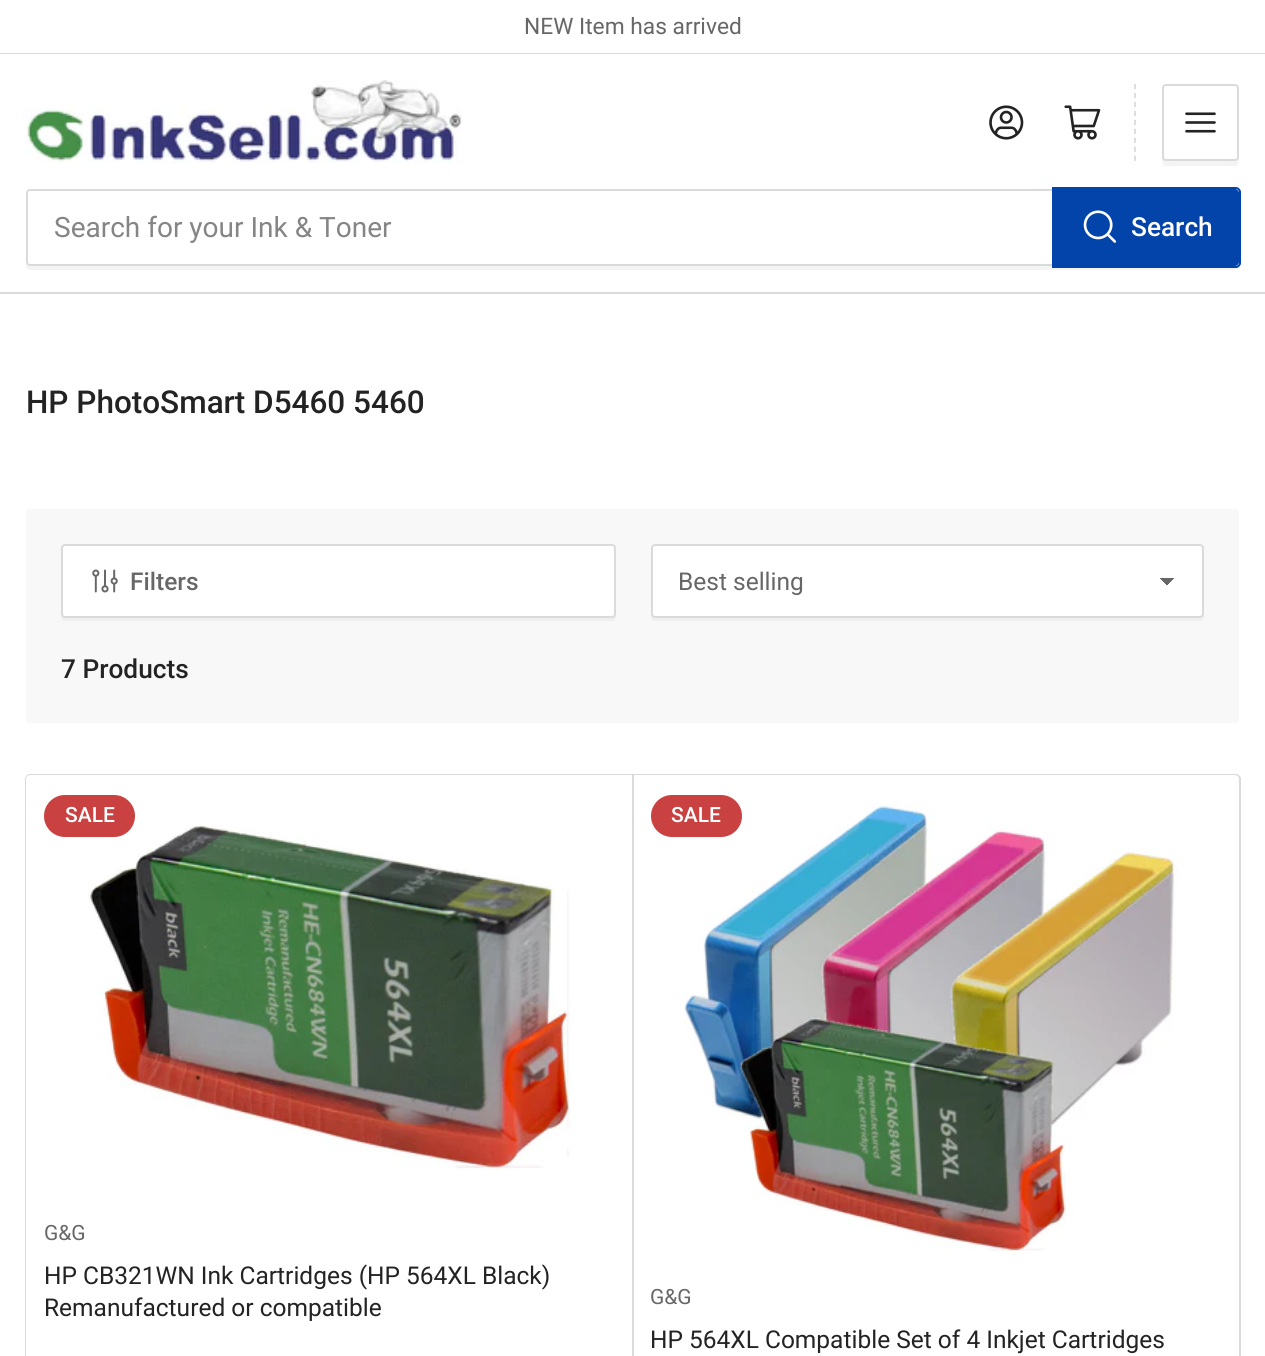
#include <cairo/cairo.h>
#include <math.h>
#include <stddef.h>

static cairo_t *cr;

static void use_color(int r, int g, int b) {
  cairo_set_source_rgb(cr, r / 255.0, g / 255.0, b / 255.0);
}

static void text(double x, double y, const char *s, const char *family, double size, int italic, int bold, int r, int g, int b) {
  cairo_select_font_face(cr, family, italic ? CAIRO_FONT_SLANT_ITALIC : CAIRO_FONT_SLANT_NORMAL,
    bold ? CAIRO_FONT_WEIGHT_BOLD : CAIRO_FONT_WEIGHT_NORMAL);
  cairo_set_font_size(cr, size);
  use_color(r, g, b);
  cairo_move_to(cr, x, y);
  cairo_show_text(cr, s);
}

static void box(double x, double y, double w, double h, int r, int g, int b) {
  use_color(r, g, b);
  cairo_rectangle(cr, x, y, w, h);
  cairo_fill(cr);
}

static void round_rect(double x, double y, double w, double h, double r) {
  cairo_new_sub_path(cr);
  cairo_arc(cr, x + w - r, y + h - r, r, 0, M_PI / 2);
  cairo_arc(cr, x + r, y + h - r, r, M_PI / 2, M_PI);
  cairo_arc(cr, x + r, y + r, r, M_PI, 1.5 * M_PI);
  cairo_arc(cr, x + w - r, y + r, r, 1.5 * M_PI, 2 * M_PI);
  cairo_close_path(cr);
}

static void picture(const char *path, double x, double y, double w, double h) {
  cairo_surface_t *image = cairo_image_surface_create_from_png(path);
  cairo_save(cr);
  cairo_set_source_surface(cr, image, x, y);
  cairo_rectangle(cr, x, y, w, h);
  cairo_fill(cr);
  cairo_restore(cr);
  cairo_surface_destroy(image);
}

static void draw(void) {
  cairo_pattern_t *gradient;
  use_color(255, 255, 255);
  cairo_paint(cr);
  box(0, 53, 1265, 1, 218, 218, 218);
  box(0, 292, 1265, 2, 218, 218, 218);
  picture("img_01.png", 26, 80, 436, 83);
  picture("img_02.png", 989, 105, 35, 35);
  picture("img_03.png", 1064, 105, 37, 35);
  cairo_new_path(cr);
  cairo_move_to(cr, 1135, 84);
  cairo_line_to(cr, 1135, 161);
  cairo_set_line_width(cr, 1.8);
  cairo_set_dash(cr, (double[]){5.25, 3.71}, 2, 0);
  cairo_stroke(cr);
  use_color(244, 244, 244);
  cairo_new_path(cr);
  cairo_move_to(cr, 1162, 158);
  cairo_curve_to(cr, 1162, 169, 1165, 166, 1178, 166);
  cairo_line_to(cr, 1224, 166);
  cairo_curve_to(cr, 1236, 166, 1239, 169, 1239, 158);
  cairo_curve_to(cr, 1239, 159, 1237, 161, 1236, 161);
  cairo_line_to(cr, 1166, 161);
  cairo_curve_to(cr, 1164, 161, 1162, 159, 1162, 158);
  cairo_close_path(cr);
  cairo_fill(cr);
  round_rect(1163, 85, 75, 75, 3);
  use_color(218, 218, 218);
  cairo_set_line_width(cr, 2);
  cairo_set_dash(cr, NULL, 0, 0);
  cairo_stroke(cr);
  picture("img_04.png", 1185, 112, 31, 21);
  use_color(244, 244, 244);
  cairo_new_path(cr);
  cairo_move_to(cr, 26, 196);
  cairo_line_to(cr, 26, 266);
  cairo_curve_to(cr, 26, 268, 28, 270, 30, 270);
  cairo_line_to(cr, 1235, 270);
  cairo_curve_to(cr, 1237, 270, 1239, 268, 1239, 266);
  cairo_line_to(cr, 1239, 262);
  cairo_curve_to(cr, 1239, 264, 1237, 266, 1236, 266);
  cairo_line_to(cr, 30, 266);
  cairo_curve_to(cr, 28, 266, 26, 264, 26, 262);
  cairo_close_path(cr);
  cairo_fill(cr);
  use_color(255, 255, 255);
  round_rect(27, 190, 1211, 75, 3);
  cairo_fill_preserve(cr);
  use_color(218, 218, 218);
  cairo_stroke(cr);
  cairo_new_path(cr);
  cairo_move_to(cr, 1053, 188);
  cairo_line_to(cr, 1236, 188);
  cairo_curve_to(cr, 1238, 188, 1240, 190, 1240, 192);
  cairo_line_to(cr, 1240, 263);
  cairo_curve_to(cr, 1240, 265, 1238, 267, 1236, 267);
  cairo_line_to(cr, 1053, 267);
  cairo_close_path(cr);
  use_color(2, 68, 169);
  cairo_stroke(cr);
  cairo_new_path(cr);
  cairo_move_to(cr, 1054, 189);
  cairo_line_to(cr, 1235, 189);
  cairo_curve_to(cr, 1237, 189, 1239, 191, 1239, 193);
  cairo_line_to(cr, 1239, 262);
  cairo_curve_to(cr, 1239, 264, 1237, 266, 1235, 266);
  cairo_line_to(cr, 1054, 266);
  cairo_close_path(cr);
  cairo_fill(cr);
  picture("img_05.png", 1083, 210, 33, 33);
  use_color(248, 248, 248);
  round_rect(26, 509, 1213, 214, 4);
  cairo_fill(cr);
  use_color(239, 239, 239);
  cairo_new_path(cr);
  cairo_move_to(cr, 61, 551);
  cairo_line_to(cr, 61, 617);
  cairo_curve_to(cr, 61, 619, 63, 621, 65, 621);
  cairo_line_to(cr, 612, 621);
  cairo_curve_to(cr, 614, 621, 616, 619, 616, 617);
  cairo_line_to(cr, 616, 614);
  cairo_curve_to(cr, 616, 616, 614, 618, 612, 618);
  cairo_line_to(cr, 65, 618);
  cairo_curve_to(cr, 63, 618, 61, 616, 61, 614);
  cairo_close_path(cr);
  cairo_fill(cr);
  use_color(255, 255, 255);
  round_rect(62, 545, 553, 72, 3);
  cairo_fill_preserve(cr);
  use_color(218, 218, 218);
  cairo_stroke(cr);
  picture("img_06.png", 92, 569, 26, 24);
  use_color(239, 239, 239);
  cairo_new_path(cr);
  cairo_move_to(cr, 651, 614);
  cairo_line_to(cr, 651, 617);
  cairo_curve_to(cr, 651, 619, 653, 621, 655, 621);
  cairo_line_to(cr, 1200, 621);
  cairo_curve_to(cr, 1202, 621, 1204, 619, 1204, 617);
  cairo_line_to(cr, 1204, 614);
  cairo_curve_to(cr, 1204, 616, 1202, 618, 1200, 618);
  cairo_line_to(cr, 654, 618);
  cairo_curve_to(cr, 653, 618, 651, 616, 651, 614);
  cairo_close_path(cr);
  cairo_fill(cr);
  use_color(255, 255, 255);
  round_rect(653, 546, 549, 70, 2);
  cairo_fill(cr);
  gradient = cairo_pattern_create_linear(1167, 577, 1176, 585);
  cairo_pattern_add_color_stop_rgba(gradient, 0.5, 0.404, 0.404, 0.404, 1);
  cairo_pattern_add_color_stop_rgba(gradient, 0.5, 1, 1, 1, 1);
  cairo_set_source(cr, gradient);
  cairo_pattern_destroy(gradient);
  cairo_rectangle(cr, 1167, 578, 9, 7);
  cairo_fill(cr);
  gradient = cairo_pattern_create_linear(1159, 585, 1167, 577);
  cairo_pattern_add_color_stop_rgba(gradient, 0.5, 1, 1, 1, 1);
  cairo_pattern_add_color_stop_rgba(gradient, 0.5, 0.404, 0.404, 0.404, 1);
  cairo_set_source(cr, gradient);
  cairo_pattern_destroy(gradient);
  cairo_rectangle(cr, 1159, 578, 8, 7);
  cairo_fill(cr);
  round_rect(652, 545, 551, 72, 3);
  use_color(218, 218, 218);
  cairo_stroke(cr);
  cairo_new_path(cr);
  cairo_move_to(cr, 30, 775);
  cairo_line_to(cr, 634, 775);
  cairo_line_to(cr, 634, 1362);
  cairo_line_to(cr, 26, 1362);
  cairo_line_to(cr, 26, 779);
  cairo_curve_to(cr, 26, 777, 28, 775, 30, 775);
  cairo_close_path(cr);
  cairo_stroke(cr);
  use_color(255, 255, 255);
  cairo_new_path(cr);
  cairo_move_to(cr, 30, 775);
  cairo_line_to(cr, 634, 775);
  cairo_line_to(cr, 634, 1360);
  cairo_line_to(cr, 26, 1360);
  cairo_line_to(cr, 26, 779);
  cairo_curve_to(cr, 26, 777, 28, 775, 30, 775);
  cairo_close_path(cr);
  cairo_fill(cr);
  picture("img_07.png", 87, 825, 485, 345);
  use_color(202, 65, 65);
  round_rect(46, 797, 87, 38, 19);
  cairo_fill_preserve(cr);
  cairo_set_line_width(cr, 4);
  cairo_stroke(cr);
  cairo_new_path(cr);
  cairo_move_to(cr, 633, 775);
  cairo_line_to(cr, 1236, 775);
  cairo_curve_to(cr, 1238, 775, 1240, 777, 1240, 779);
  cairo_line_to(cr, 1240, 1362);
  cairo_line_to(cr, 633, 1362);
  cairo_close_path(cr);
  use_color(218, 218, 218);
  cairo_set_line_width(cr, 2);
  cairo_stroke(cr);
  use_color(255, 255, 255);
  cairo_new_path(cr);
  cairo_move_to(cr, 634, 775);
  cairo_line_to(cr, 1235, 775);
  cairo_curve_to(cr, 1237, 775, 1239, 777, 1239, 779);
  cairo_line_to(cr, 1239, 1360);
  cairo_line_to(cr, 634, 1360);
  cairo_close_path(cr);
  cairo_fill(cr);
  picture("img_08.png", 684, 804, 494, 450);
  use_color(202, 65, 65);
  round_rect(653, 797, 87, 38, 19);
  cairo_fill_preserve(cr);
  cairo_set_line_width(cr, 4);
  cairo_stroke(cr);
  text(524, 34, "NEW Item has arrived", "Roboto", 22.75, 0, 0, 103, 103, 103);
  text(54, 237, "Search for your Ink & Toner", "Roboto", 28, 0, 0, 133, 133, 133);
  text(1131, 236, "Search", "Roboto Medium", 26.25, 0, 0, 255, 255, 255);
  text(26, 413, "HP PhotoSmart D5460 5460", "Roboto Medium", 31.5, 0, 0, 35, 35, 35);
  text(130, 590, "Filters", "Roboto Medium", 24.5, 0, 0, 103, 103, 103);
  text(678, 590, "Best selling", "Roboto", 24.5, 0, 0, 103, 103, 103);
  text(61, 678, "7 Products", "Roboto Medium", 26.25, 0, 0, 35, 35, 35);
  text(65, 822, "SALE", "Roboto Medium", 21, 0, 0, 255, 255, 255);
  text(44, 1240, "G&G", "Roboto", 21, 0, 0, 103, 103, 103);
  text(44, 1284, "HP CB321WN Ink Cartridges (HP 564XL Black)", "Roboto", 24.5, 0, 0, 35, 35, 35);
  text(44, 1316, "Remanufactured or compatible", "Roboto", 24.5, 0, 0, 35, 35, 35);
  text(671, 822, "SALE", "Roboto Medium", 21, 0, 0, 255, 255, 255);
  text(650, 1304, "G&G", "Roboto", 21, 0, 0, 103, 103, 103);
  text(650, 1348, "HP 564XL Compatible Set of 4 Inkjet Cartridges", "Roboto", 24.5, 0, 0, 35, 35, 35);
}

int main(void) {
  cairo_surface_t *surface = cairo_image_surface_create(CAIRO_FORMAT_RGB24, 1265, 1356);
  cr = cairo_create(surface);
  cairo_font_options_t *options = cairo_font_options_create();
  cairo_font_options_set_hint_metrics(options, CAIRO_HINT_METRICS_OFF);
  cairo_font_options_set_hint_style(options, CAIRO_HINT_STYLE_NONE);
  cairo_set_font_options(cr, options);
  cairo_set_miter_limit(cr, 4);
  draw();
  cairo_surface_write_to_png(surface, "out.png");
  cairo_font_options_destroy(options);
  cairo_destroy(cr);
  cairo_surface_destroy(surface);
  return 0;
}
